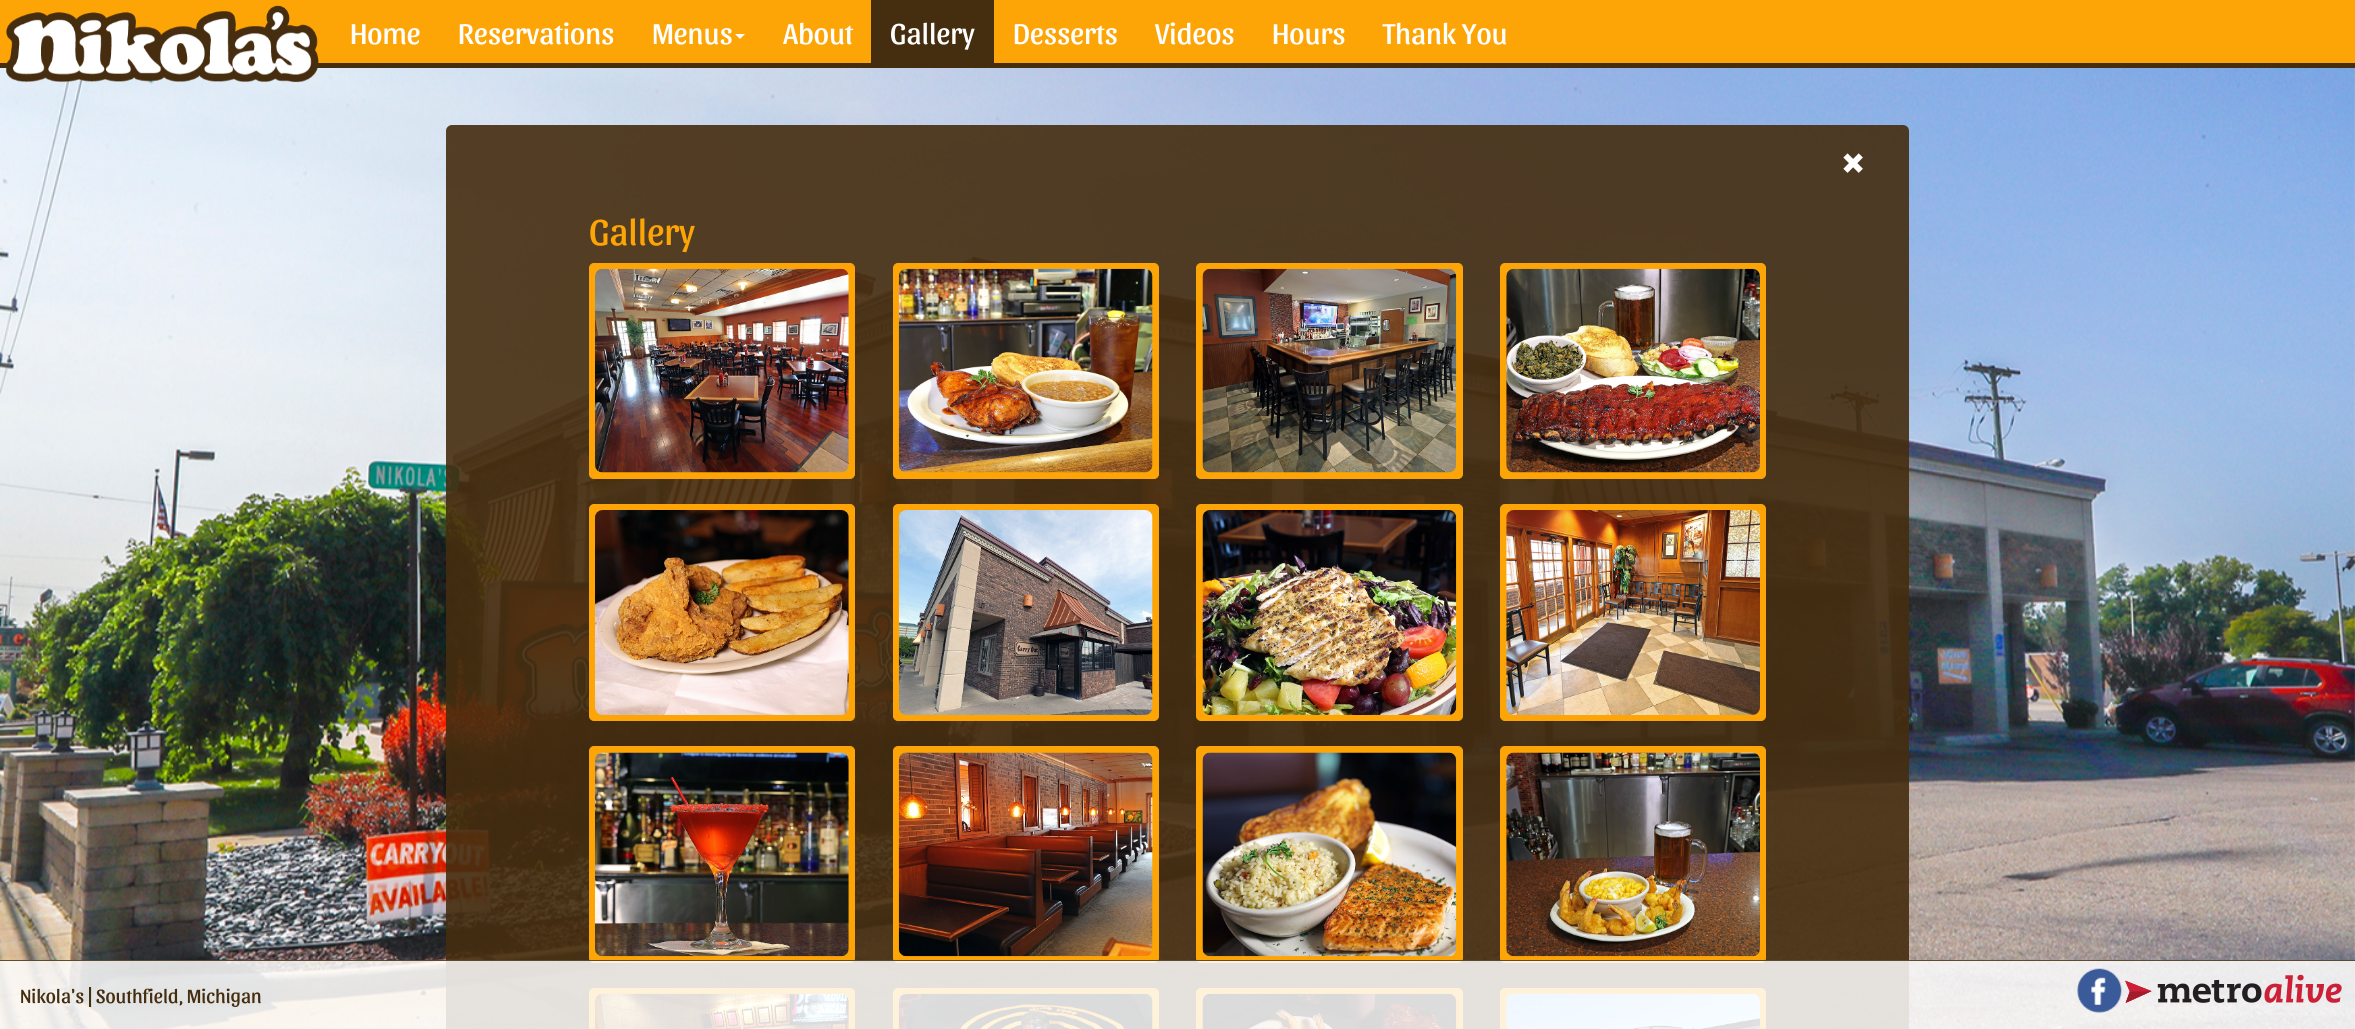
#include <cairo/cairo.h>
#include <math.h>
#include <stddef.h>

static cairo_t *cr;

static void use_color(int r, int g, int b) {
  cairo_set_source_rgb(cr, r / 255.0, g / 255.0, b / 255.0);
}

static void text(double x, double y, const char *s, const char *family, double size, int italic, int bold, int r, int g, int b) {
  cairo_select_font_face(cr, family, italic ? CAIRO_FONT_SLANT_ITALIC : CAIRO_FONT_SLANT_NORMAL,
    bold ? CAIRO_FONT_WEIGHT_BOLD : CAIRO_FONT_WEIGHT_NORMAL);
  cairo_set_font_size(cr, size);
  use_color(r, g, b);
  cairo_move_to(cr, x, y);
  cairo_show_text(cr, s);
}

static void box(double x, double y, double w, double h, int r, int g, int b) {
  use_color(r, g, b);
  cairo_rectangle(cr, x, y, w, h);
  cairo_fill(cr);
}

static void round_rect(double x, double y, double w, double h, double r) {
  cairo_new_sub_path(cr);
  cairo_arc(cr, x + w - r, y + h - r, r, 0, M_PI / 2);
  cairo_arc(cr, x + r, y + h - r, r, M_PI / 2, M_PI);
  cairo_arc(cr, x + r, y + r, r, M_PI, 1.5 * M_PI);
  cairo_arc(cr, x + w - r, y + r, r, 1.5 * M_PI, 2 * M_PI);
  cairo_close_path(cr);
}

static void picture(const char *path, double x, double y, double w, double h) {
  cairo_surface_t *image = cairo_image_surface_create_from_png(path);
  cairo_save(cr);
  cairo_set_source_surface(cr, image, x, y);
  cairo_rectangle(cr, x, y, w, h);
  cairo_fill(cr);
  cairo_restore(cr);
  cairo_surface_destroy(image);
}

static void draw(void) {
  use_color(255, 255, 255);
  cairo_paint(cr);
  box(0, 0, 2355, 63, 253, 165, 7);
  box(0, 63, 2355, 5, 69, 45, 15);
  picture("img_02.png", 0, 68, 2355, 961);
  picture("img_01.png", 6, 5, 313, 78);
  use_color(255, 255, 255);
  cairo_new_path(cr);
  cairo_move_to(cr, 735, 34);
  cairo_line_to(cr, 745, 34);
  cairo_line_to(cr, 740, 39);
  cairo_close_path(cr);
  cairo_fill(cr);
  box(871, 0, 123, 63, 69, 45, 15);
  cairo_set_source_rgba(cr, 0.271, 0.176, 0.059, 0.9);
  round_rect(446, 125, 1463, 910, 6);
  cairo_fill(cr);
  picture("img_03.png", 1843, 153, 20, 20);
  use_color(253, 165, 7);
  round_rect(589.5, 263.5, 265, 215, 4.5);
  cairo_fill_preserve(cr);
  cairo_set_line_width(cr, 1);
  cairo_stroke(cr);
  picture("img_04.png", 595, 268, 254, 205);
  round_rect(893.5, 263.5, 265, 215, 4.5);
  cairo_fill_preserve(cr);
  cairo_stroke(cr);
  picture("img_05.png", 898, 268, 255, 205);
  round_rect(1196.5, 263.5, 266, 215, 4.5);
  cairo_fill_preserve(cr);
  cairo_stroke(cr);
  picture("img_06.png", 1202, 268, 255, 205);
  round_rect(1500.5, 263.5, 265, 215, 4.5);
  cairo_fill_preserve(cr);
  cairo_stroke(cr);
  picture("img_07.png", 1506, 268, 254, 205);
  round_rect(589.5, 504.5, 265, 216, 4.5);
  cairo_fill_preserve(cr);
  cairo_stroke(cr);
  picture("img_08.png", 595, 510, 254, 205);
  round_rect(893.5, 504.5, 265, 216, 4.5);
  cairo_fill_preserve(cr);
  cairo_stroke(cr);
  picture("img_09.png", 898, 510, 255, 205);
  round_rect(1196.5, 504.5, 266, 216, 4.5);
  cairo_fill_preserve(cr);
  cairo_stroke(cr);
  picture("img_10.png", 1202, 510, 255, 205);
  round_rect(1500.5, 504.5, 265, 216, 4.5);
  cairo_fill_preserve(cr);
  cairo_stroke(cr);
  picture("img_11.png", 1506, 510, 254, 205);
  round_rect(589.5, 746.5, 265, 216, 4.5);
  cairo_fill_preserve(cr);
  cairo_stroke(cr);
  picture("img_12.png", 595, 752, 254, 205);
  round_rect(893.5, 746.5, 265, 216, 4.5);
  cairo_fill_preserve(cr);
  cairo_stroke(cr);
  picture("img_13.png", 898, 752, 255, 205);
  round_rect(1196.5, 746.5, 266, 216, 4.5);
  cairo_fill_preserve(cr);
  cairo_stroke(cr);
  picture("img_14.png", 1202, 752, 255, 205);
  round_rect(1500.5, 746.5, 265, 216, 4.5);
  cairo_fill_preserve(cr);
  cairo_stroke(cr);
  picture("img_15.png", 1506, 752, 254, 205);
  round_rect(589.5, 988.5, 265, 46, 4.5);
  cairo_fill_preserve(cr);
  cairo_stroke(cr);
  picture("img_16.png", 595, 993, 254, 36);
  round_rect(893.5, 988.5, 265, 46, 4.5);
  cairo_fill_preserve(cr);
  cairo_stroke(cr);
  picture("img_17.png", 898, 993, 255, 36);
  round_rect(1196.5, 988.5, 266, 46, 4.5);
  cairo_fill_preserve(cr);
  cairo_stroke(cr);
  picture("img_18.png", 1202, 993, 255, 36);
  round_rect(1500.5, 988.5, 265, 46, 4.5);
  cairo_fill_preserve(cr);
  cairo_stroke(cr);
  picture("img_19.png", 1506, 993, 254, 36);
  cairo_set_source_rgba(cr, 1, 1, 1, 0.85);
  cairo_rectangle(cr, 0, 960, 2355, 69);
  cairo_fill(cr);
  cairo_set_source_rgba(cr, 0.271, 0.176, 0.059, 0.85);
  cairo_rectangle(cr, 0, 960, 2355, 1);
  cairo_fill(cr);
  picture("img_20.png", 2077, 968, 45, 45);
  picture("img_21.png", 2125, 974, 217, 29);
  text(350, 44, "Home", "Sansita", 30, 0, 0, 255, 255, 255);
  text(458, 44, "Reservations", "Sansita", 30, 0, 0, 255, 255, 255);
  text(652, 44, "Menus", "Sansita", 30, 0, 0, 255, 255, 255);
  text(783, 44, "About", "Sansita", 30, 0, 0, 255, 255, 255);
  text(890, 44, "Gallery", "Sansita", 30, 0, 0, 255, 255, 255);
  text(1013, 44, "Desserts", "Sansita", 30, 0, 0, 255, 255, 255);
  text(1155, 44, "Videos", "Sansita", 30, 0, 0, 255, 255, 255);
  text(1272, 44, "Hours", "Sansita", 30, 0, 0, 255, 255, 255);
  text(1383, 44, "Thank You", "Sansita", 30, 0, 0, 255, 255, 255);
  text(589, 245, "Gallery", "Sansita", 37.5, 0, 0, 253, 165, 7);
  text(20, 1003, "Nikola's | Southfield, Michigan", "Sansita", 20, 0, 0, 69, 45, 15);
}

int main(void) {
  cairo_surface_t *surface = cairo_image_surface_create(CAIRO_FORMAT_RGB24, 2355, 1029);
  cr = cairo_create(surface);
  cairo_font_options_t *options = cairo_font_options_create();
  cairo_font_options_set_hint_metrics(options, CAIRO_HINT_METRICS_OFF);
  cairo_font_options_set_hint_style(options, CAIRO_HINT_STYLE_NONE);
  cairo_set_font_options(cr, options);
  cairo_set_miter_limit(cr, 4);
  draw();
  cairo_surface_write_to_png(surface, "out.png");
  cairo_font_options_destroy(options);
  cairo_destroy(cr);
  cairo_surface_destroy(surface);
  return 0;
}
